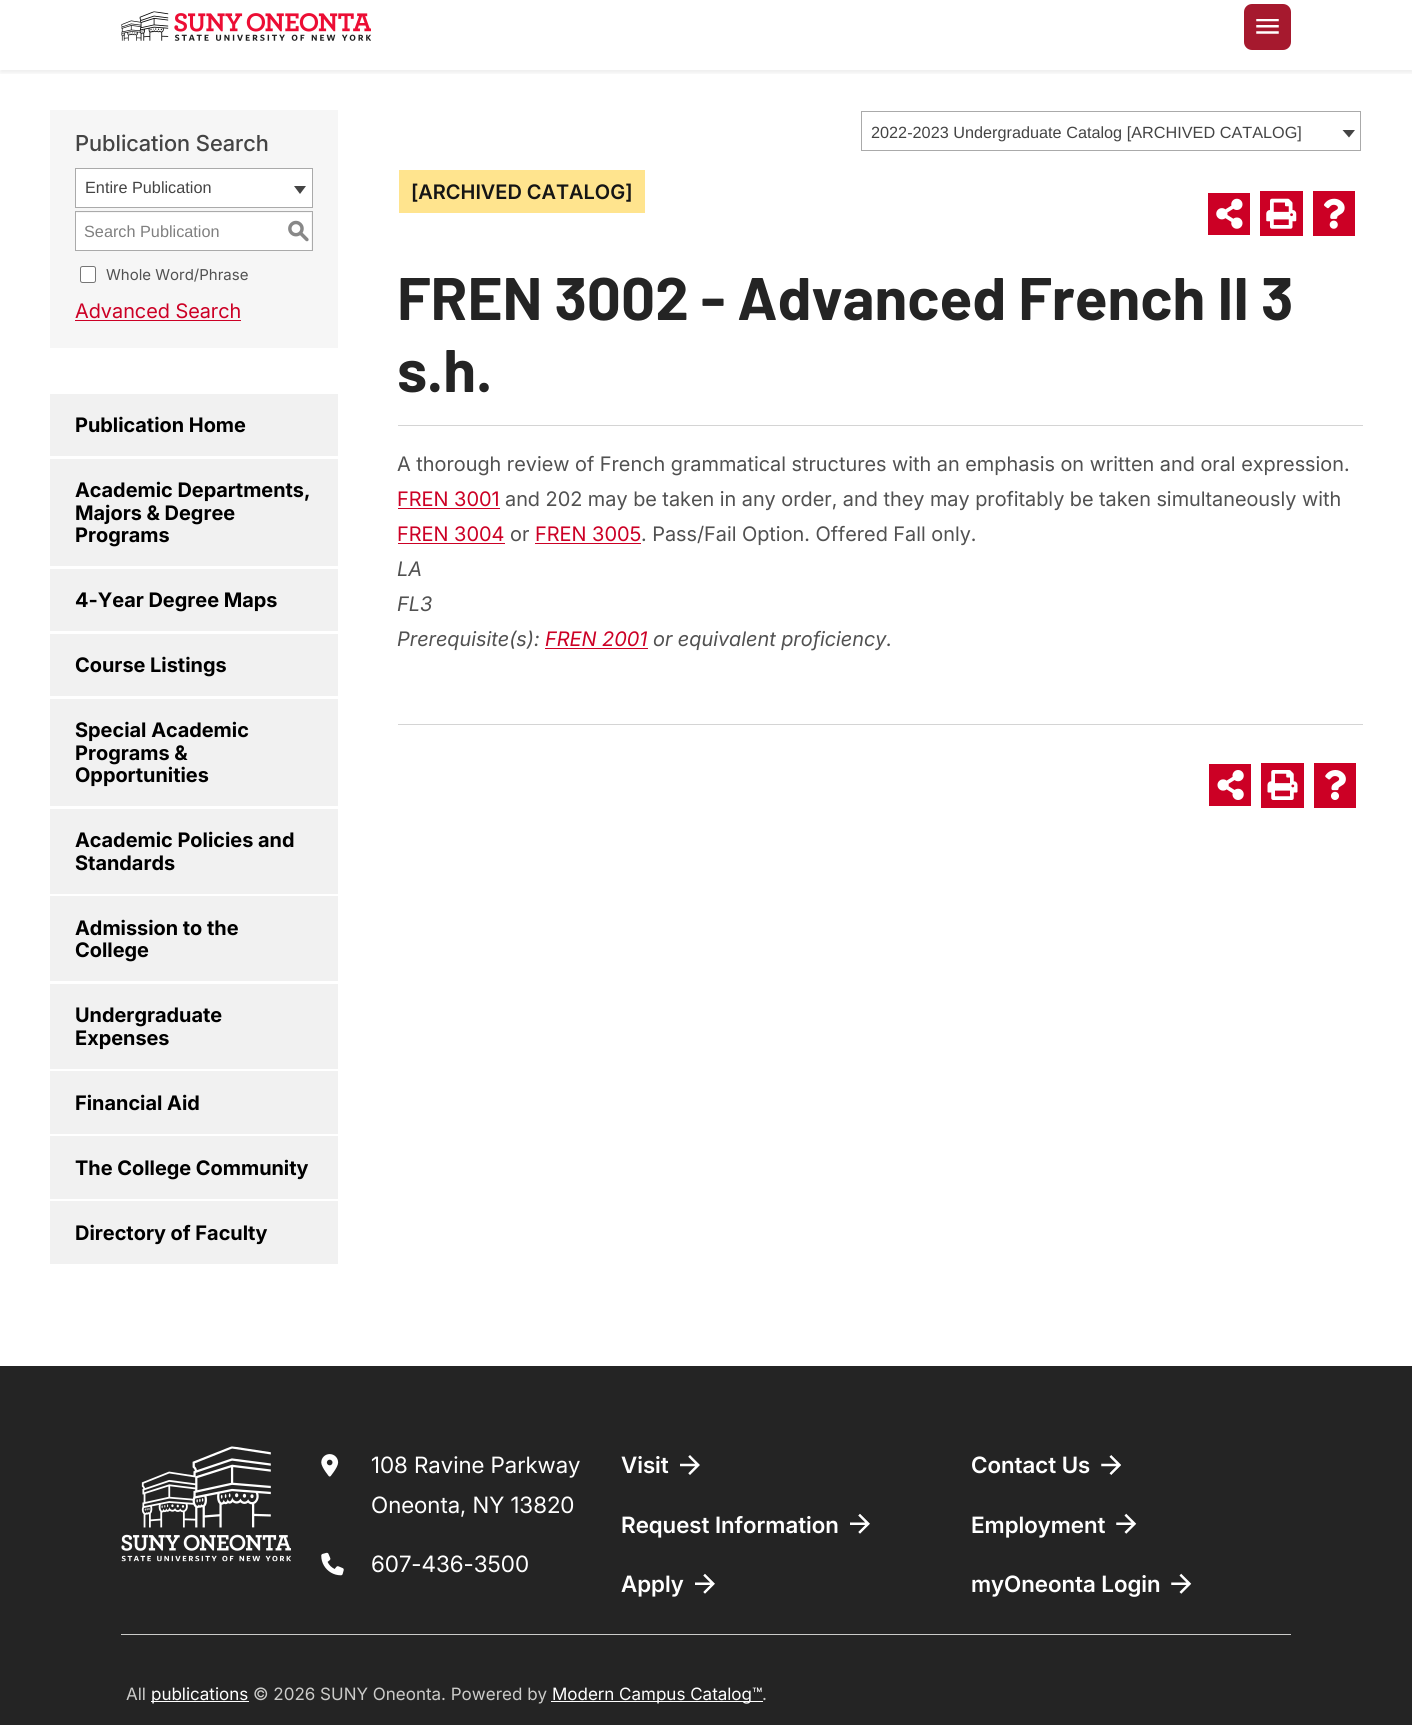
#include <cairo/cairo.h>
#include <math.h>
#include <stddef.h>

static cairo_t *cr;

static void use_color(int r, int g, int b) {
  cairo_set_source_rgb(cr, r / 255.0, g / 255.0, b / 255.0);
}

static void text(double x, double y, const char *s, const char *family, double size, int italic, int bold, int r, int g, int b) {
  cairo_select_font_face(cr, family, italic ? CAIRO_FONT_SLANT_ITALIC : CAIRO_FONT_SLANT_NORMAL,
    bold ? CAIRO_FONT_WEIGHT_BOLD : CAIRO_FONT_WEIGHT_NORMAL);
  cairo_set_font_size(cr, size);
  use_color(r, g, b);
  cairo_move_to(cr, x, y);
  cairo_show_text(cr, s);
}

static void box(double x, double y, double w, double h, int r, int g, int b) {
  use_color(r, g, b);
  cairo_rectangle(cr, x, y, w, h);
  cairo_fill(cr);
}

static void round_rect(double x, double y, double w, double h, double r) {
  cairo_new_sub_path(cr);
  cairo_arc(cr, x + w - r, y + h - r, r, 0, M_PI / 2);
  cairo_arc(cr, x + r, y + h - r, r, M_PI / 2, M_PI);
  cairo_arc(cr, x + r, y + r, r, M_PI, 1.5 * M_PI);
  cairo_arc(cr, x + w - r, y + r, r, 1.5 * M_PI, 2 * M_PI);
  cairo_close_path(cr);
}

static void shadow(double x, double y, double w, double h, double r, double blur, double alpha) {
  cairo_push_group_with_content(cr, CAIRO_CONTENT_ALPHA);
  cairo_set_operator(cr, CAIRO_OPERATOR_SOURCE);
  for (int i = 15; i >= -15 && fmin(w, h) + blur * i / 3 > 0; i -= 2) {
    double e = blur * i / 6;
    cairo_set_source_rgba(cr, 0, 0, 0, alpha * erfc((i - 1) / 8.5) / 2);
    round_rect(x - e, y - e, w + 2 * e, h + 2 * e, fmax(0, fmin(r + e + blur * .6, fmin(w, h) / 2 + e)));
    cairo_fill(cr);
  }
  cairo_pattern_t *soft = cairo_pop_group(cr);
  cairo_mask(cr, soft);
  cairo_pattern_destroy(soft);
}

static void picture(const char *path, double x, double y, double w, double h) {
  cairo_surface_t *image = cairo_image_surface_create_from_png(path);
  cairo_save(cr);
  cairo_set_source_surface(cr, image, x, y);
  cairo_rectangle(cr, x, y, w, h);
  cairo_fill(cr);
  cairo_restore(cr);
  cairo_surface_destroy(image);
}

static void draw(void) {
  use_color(255, 255, 255);
  cairo_paint(cr);
  cairo_save(cr);
  cairo_rectangle(cr, 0, 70, 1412, 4);
  cairo_clip(cr);
  use_color(0, 0, 0);
  shadow(0, -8, 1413, 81, 0, 2.5, 0.07);
  cairo_restore(cr);
  picture("img_01.png", 121, 11, 250, 30);
  use_color(166, 25, 46);
  round_rect(1244, 4, 47, 46, 8);
  cairo_fill(cr);
  picture("img_02.png", 1256, 19, 23, 15);
  cairo_rectangle(cr, 861.5, 111.5, 499, 39);
  use_color(170, 170, 170);
  cairo_set_line_width(cr, 1);
  cairo_stroke(cr);
  use_color(68, 68, 68);
  cairo_new_path(cr);
  cairo_move_to(cr, 1342.5, 130);
  cairo_line_to(cr, 1355, 130);
  cairo_line_to(cr, 1349, 137.5);
  cairo_close_path(cr);
  cairo_fill(cr);
  box(50, 110, 288, 238, 246, 246, 246);
  use_color(255, 255, 255);
  cairo_rectangle(cr, 75.5, 168.5, 237, 39);
  cairo_fill_preserve(cr);
  use_color(170, 170, 170);
  cairo_stroke(cr);
  use_color(68, 68, 68);
  cairo_new_path(cr);
  cairo_move_to(cr, 294, 186);
  cairo_line_to(cr, 306, 186);
  cairo_line_to(cr, 300, 194);
  cairo_close_path(cr);
  cairo_fill(cr);
  box(76, 213, 235, 37, 255, 255, 255);
  cairo_rectangle(cr, 75.5, 211.5, 237, 39);
  use_color(170, 170, 170);
  cairo_stroke(cr);
  use_color(255, 255, 255);
  round_rect(80.5, 266.5, 15, 16, 2);
  cairo_fill_preserve(cr);
  use_color(118, 118, 118);
  cairo_stroke(cr);
  box(75, 320, 166, 1, 204, 0, 37);
  box(50, 394, 288, 62, 241, 241, 241);
  box(50, 459, 288, 107, 241, 241, 241);
  box(50, 569, 288, 62, 241, 241, 241);
  box(50, 634, 288, 62, 241, 241, 241);
  box(50, 699, 288, 107, 241, 241, 241);
  box(50, 809, 288, 85, 241, 241, 241);
  box(50, 896, 288, 85, 241, 241, 241);
  box(50, 984, 288, 85, 241, 241, 241);
  box(50, 1071, 288, 63, 241, 241, 241);
  box(50, 1136, 288, 63, 241, 241, 241);
  box(50, 1201, 288, 63, 241, 241, 241);
  box(399, 170, 246, 43, 255, 228, 142);
  box(1208, 193, 42, 42, 204, 0, 37);
  picture("img_03.png", 1216, 198, 27, 31);
  box(1260, 191, 43, 45, 204, 0, 37);
  picture("img_04.png", 1266, 198, 31, 31);
  box(1313, 191, 42, 45, 204, 0, 37);
  picture("img_05.png", 1324, 198, 21, 31);
  box(398, 425, 965, 1, 212, 212, 212);
  box(398, 508, 102, 1, 204, 0, 37);
  box(398, 543, 107, 1, 204, 0, 37);
  box(535, 543, 106, 1, 204, 0, 37);
  box(545, 648, 103, 1, 204, 0, 37);
  box(398, 724, 965, 1, 212, 212, 212);
  box(1209, 764, 42, 42, 204, 0, 37);
  picture("img_06.png", 1217, 770, 27, 30);
  box(1261, 763, 43, 45, 204, 0, 37);
  picture("img_07.png", 1267, 770, 31, 30);
  box(1314, 763, 42, 45, 204, 0, 37);
  picture("img_08.png", 1325, 770, 21, 30);
  box(0, 1366, 1412, 359, 36, 36, 36);
  picture("img_09.png", 121, 1446, 170, 116);
  picture("img_10.png", 321, 1454, 18, 23);
  picture("img_11.png", 321, 1552, 23, 24);
  picture("img_12.png", 680, 1455, 20, 20);
  picture("img_13.png", 850, 1513, 20, 21);
  picture("img_13.png", 695, 1573, 20, 21);
  picture("img_14.png", 1101, 1455, 20, 20);
  picture("img_15.png", 1116, 1513, 21, 21);
  picture("img_15.png", 1171, 1573, 21, 21);
  box(121, 1634, 1170, 1, 203, 203, 201);
  box(151, 1701, 98, 1, 255, 255, 255);
  box(551, 1701, 212, 1, 255, 255, 255);
  text(871, 138, "2022-2023 Undergraduate Catalog [ARCHIVED CATALOG]", "Liberation Sans", 16.25, 0, 0, 68, 68, 68);
  text(75, 151, "Publication Search", "Inter Medium", 22, 0, 0, 68, 68, 68);
  text(85, 193, "Entire Publication", "Liberation Sans", 16.25, 0, 0, 68, 68, 68);
  text(84, 237, "Search Publication", "Liberation Sans", 16.25, 0, 0, 128, 128, 128);
  text(287, 238, "S", "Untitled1 Medium", 22.5, 0, 0, 136, 136, 136);
  text(106, 280, "Whole Word/Phrase", "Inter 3", 15, 0, 0, 81, 81, 81);
  text(75, 318, "Advanced Search", "Inter", 20, 0, 0, 204, 0, 37);
  text(75, 432, "Publication Home", "Inter", 20, 0, 1, 0, 0, 0);
  text(75, 497, "Academic Departments,", "Inter", 20, 0, 1, 0, 0, 0);
  text(75, 520, "Majors & Degree", "Inter", 20, 0, 1, 0, 0, 0);
  text(75, 542, "Programs", "Inter", 20, 0, 1, 0, 0, 0);
  text(75, 607, "4-Year Degree Maps", "Inter", 20, 0, 1, 0, 0, 0);
  text(75, 672, "Course Listings", "Inter", 20, 0, 1, 0, 0, 0);
  text(75, 737, "Special Academic", "Inter", 20, 0, 1, 0, 0, 0);
  text(75, 760, "Programs &", "Inter", 20, 0, 1, 0, 0, 0);
  text(75, 782, "Opportunities", "Inter", 20, 0, 1, 0, 0, 0);
  text(75, 847, "Academic Policies and", "Inter", 20, 0, 1, 0, 0, 0);
  text(75, 870, "Standards", "Inter", 20, 0, 1, 0, 0, 0);
  text(75, 935, "Admission to the", "Inter", 20, 0, 1, 0, 0, 0);
  text(75, 957, "College", "Inter", 20, 0, 1, 0, 0, 0);
  text(75, 1022, "Undergraduate", "Inter", 20, 0, 1, 0, 0, 0);
  text(75, 1045, "Expenses", "Inter", 20, 0, 1, 0, 0, 0);
  text(75, 1110, "Financial Aid", "Inter", 20, 0, 1, 0, 0, 0);
  text(75, 1175, "The College Community", "Inter", 20, 0, 1, 0, 0, 0);
  text(75, 1240, "Directory of Faculty", "Inter", 20, 0, 1, 0, 0, 0);
  text(411, 199, "[ARCHIVED CATALOG]", "Inter SemiBold", 20, 0, 0, 21, 21, 21);
  text(397, 320, "FREN 3002 - Advanced French II 3", "Barlow", 60, 0, 1, 36, 36, 36);
  text(397, 392, "s.h.", "Barlow", 60, 0, 1, 36, 36, 36);
  text(397, 471, "A thorough review of French grammatical structures with an emphasis on written and oral expression.", "Inter", 20, 0, 0, 81, 81, 81);
  text(397, 506, "FREN 3001", "Inter", 20, 0, 0, 204, 0, 37);
  text(505, 506, "and 202 may be taken in any order, and they may profitably be taken simultaneously with", "Inter", 20, 0, 0, 81, 81, 81);
  text(397, 541, "FREN 3004", "Inter", 20, 0, 0, 204, 0, 37);
  text(510, 541, "or", "Inter", 20, 0, 0, 81, 81, 81);
  text(535, 541, "FREN 3005", "Inter", 20, 0, 0, 204, 0, 37);
  text(641, 541, ". Pass/Fail Option. Offered Fall only.", "Inter", 20, 0, 0, 81, 81, 81);
  text(397, 576, "LA", "Inter", 20, 1, 0, 81, 81, 81);
  text(397, 611, "FL3", "Inter", 20, 1, 0, 81, 81, 81);
  text(397, 646, "Prerequisite(s):", "Inter", 20, 1, 0, 81, 81, 81);
  text(545, 646, "FREN 2001", "Inter", 20, 1, 0, 204, 0, 37);
  text(653, 646, "or equivalent proficiency.", "Inter", 20, 1, 0, 81, 81, 81);
  text(371, 1473, "108 Ravine Parkway", "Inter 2", 22.5, 0, 0, 255, 255, 255);
  text(371, 1513, "Oneonta, NY 13820", "Inter 2", 22.5, 0, 0, 255, 255, 255);
  text(371, 1572, "607-436-3500", "Inter 2", 22.5, 0, 0, 255, 255, 255);
  text(621, 1473, "Visit", "Inter 2 SemiBold", 22.5, 0, 0, 255, 255, 255);
  text(621, 1533, "Request Information", "Inter 2 SemiBold", 22.5, 0, 0, 255, 255, 255);
  text(621, 1592, "Apply", "Inter 2 SemiBold", 22.5, 0, 0, 255, 255, 255);
  text(971, 1473, "Contact Us", "Inter 2 SemiBold", 22.5, 0, 0, 255, 255, 255);
  text(971, 1533, "Employment", "Inter 2 SemiBold", 22.5, 0, 0, 255, 255, 255);
  text(971, 1592, "myOneonta Login", "Inter 2 SemiBold", 22.5, 0, 0, 255, 255, 255);
  text(126, 1700, "All", "Inter 3", 17, 0, 0, 203, 203, 201);
  text(151, 1700, "publications", "Inter 3", 17, 0, 0, 255, 255, 255);
  text(253, 1700, "© 2026 SUNY Oneonta. Powered by", "Inter 3", 17, 0, 0, 203, 203, 201);
  text(552, 1700, "Modern Campus Catalog™", "Inter 3", 17, 0, 0, 255, 255, 255);
  text(762, 1700, ".", "Inter 3", 17, 0, 0, 203, 203, 201);
}

int main(void) {
  cairo_surface_t *surface = cairo_image_surface_create(CAIRO_FORMAT_RGB24, 1412, 1725);
  cr = cairo_create(surface);
  cairo_font_options_t *options = cairo_font_options_create();
  cairo_font_options_set_hint_metrics(options, CAIRO_HINT_METRICS_OFF);
  cairo_font_options_set_hint_style(options, CAIRO_HINT_STYLE_NONE);
  cairo_set_font_options(cr, options);
  cairo_set_miter_limit(cr, 4);
  draw();
  cairo_surface_write_to_png(surface, "out.png");
  cairo_font_options_destroy(options);
  cairo_destroy(cr);
  cairo_surface_destroy(surface);
  return 0;
}
